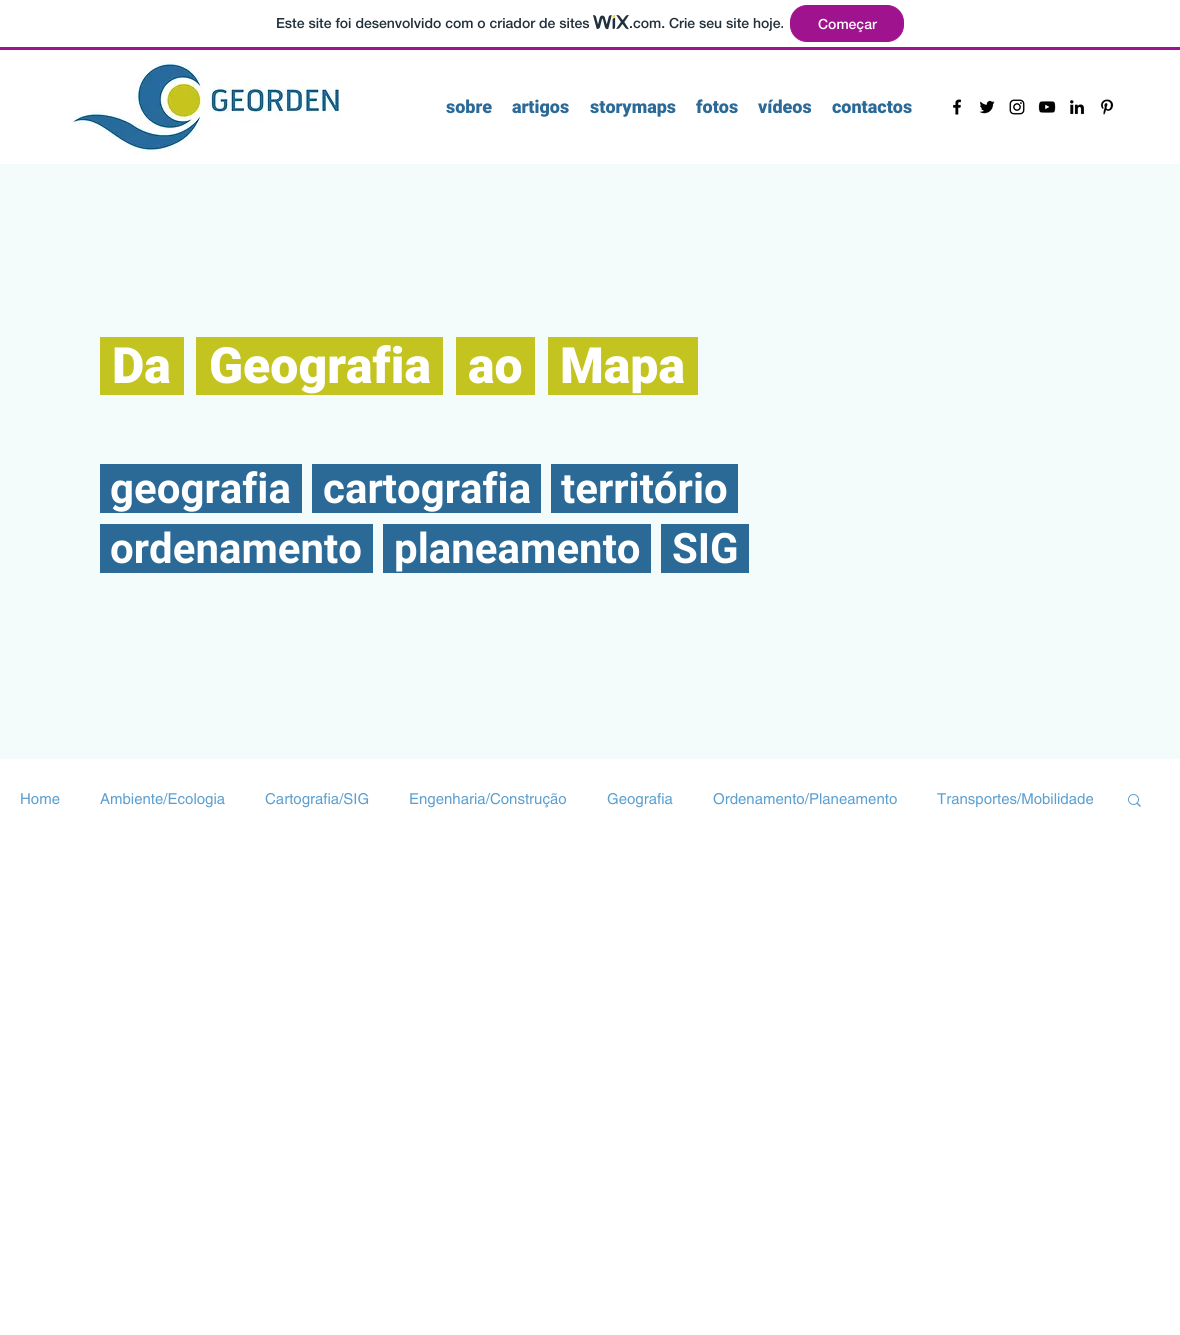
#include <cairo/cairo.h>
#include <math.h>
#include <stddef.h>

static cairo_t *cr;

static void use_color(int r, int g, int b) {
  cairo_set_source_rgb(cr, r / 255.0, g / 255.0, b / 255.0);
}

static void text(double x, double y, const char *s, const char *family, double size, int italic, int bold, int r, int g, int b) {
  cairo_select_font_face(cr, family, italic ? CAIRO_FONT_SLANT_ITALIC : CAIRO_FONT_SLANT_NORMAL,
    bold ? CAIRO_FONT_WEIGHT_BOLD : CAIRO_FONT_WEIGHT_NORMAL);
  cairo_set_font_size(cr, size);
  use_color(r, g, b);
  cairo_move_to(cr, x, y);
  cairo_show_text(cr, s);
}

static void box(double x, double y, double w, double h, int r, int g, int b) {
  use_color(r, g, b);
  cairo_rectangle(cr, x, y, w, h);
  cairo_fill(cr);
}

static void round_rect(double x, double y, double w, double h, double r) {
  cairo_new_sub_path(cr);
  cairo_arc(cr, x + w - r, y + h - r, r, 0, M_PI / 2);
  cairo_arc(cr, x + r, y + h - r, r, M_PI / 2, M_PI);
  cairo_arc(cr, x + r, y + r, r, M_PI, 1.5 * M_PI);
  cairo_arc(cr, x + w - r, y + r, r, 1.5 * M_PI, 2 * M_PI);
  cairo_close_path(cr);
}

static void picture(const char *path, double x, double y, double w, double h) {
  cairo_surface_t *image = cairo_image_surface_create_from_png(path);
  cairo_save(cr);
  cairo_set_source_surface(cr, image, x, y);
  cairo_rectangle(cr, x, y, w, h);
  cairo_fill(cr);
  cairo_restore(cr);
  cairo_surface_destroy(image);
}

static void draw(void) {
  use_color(255, 255, 255);
  cairo_paint(cr);
  box(0, 47, 1180, 3, 160, 19, 142);
  picture("img_01.png", 593, 15, 36, 15);
  round_rect(790.5, 5.5, 113, 36, 16.5);
  cairo_fill_preserve(cr);
  cairo_set_line_width(cr, 1);
  cairo_stroke(cr);
  picture("img_02.png", 67, 60, 274, 94);
  picture("img_03.png", 953, 99, 9, 16);
  picture("img_04.png", 979, 100, 16, 14);
  picture("img_05.png", 1009, 99, 16, 16);
  picture("img_06.png", 1038, 101, 18, 12);
  picture("img_07.png", 1070, 100, 15, 15);
  picture("img_08.png", 1100, 99, 14, 16);
  box(0, 164, 1180, 595, 244, 251, 251);
  box(100, 337, 84, 58, 196, 196, 33);
  box(196, 337, 247, 58, 196, 196, 33);
  box(456, 337, 79, 58, 196, 196, 33);
  box(548, 337, 150, 58, 196, 196, 33);
  box(100, 464, 202, 49, 43, 106, 151);
  box(312, 464, 229, 49, 43, 106, 151);
  box(551, 464, 187, 49, 43, 106, 151);
  box(100, 524, 273, 49, 43, 106, 151);
  box(383, 524, 268, 49, 43, 106, 151);
  box(661, 524, 88, 49, 43, 106, 151);
  picture("img_09.png", 1128, 794, 13, 13);
  text(276, 28, "Este site foi desenvolvido com o criador de sites", "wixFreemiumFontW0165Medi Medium", 14, 0, 0, 32, 48, 60);
  text(629, 28, ".com. Crie seu site hoje.", "wixFreemiumFontW0165Medi Medium", 14, 0, 0, 32, 48, 60);
  text(818, 29, "Começar", "wixFreemiumFontW0165Medi Medium", 14, 0, 0, 255, 255, 255);
  text(446, 113, "sobre", "Roboto Black", 18, 0, 0, 43, 106, 151);
  text(512, 113, "artigos", "Roboto Black", 18, 0, 0, 43, 106, 151);
  text(590, 113, "storymaps", "Roboto Black", 18, 0, 0, 43, 106, 151);
  text(696, 113, "fotos", "Roboto Black", 18, 0, 0, 43, 106, 151);
  text(758, 113, "vídeos", "Roboto Black", 18, 0, 0, 43, 106, 151);
  text(832, 113, "contactos", "Roboto Black", 18, 0, 0, 43, 106, 151);
  text(112, 383, "Da", "Roboto Black", 50, 0, 0, 255, 255, 255);
  text(209, 383, "Geografia", "Roboto Black", 50, 0, 0, 255, 255, 255);
  text(468, 383, "ao", "Roboto Black", 50, 0, 0, 255, 255, 255);
  text(560, 383, "Mapa", "Roboto Black", 50, 0, 0, 255, 255, 255);
  text(110, 503, "geografia", "Roboto", 42, 0, 1, 255, 255, 255);
  text(323, 503, "cartografia", "Roboto", 42, 0, 1, 255, 255, 255);
  text(561, 503, "território", "Roboto", 42, 0, 1, 255, 255, 255);
  text(110, 563, "ordenamento", "Roboto", 42, 0, 1, 255, 255, 255);
  text(394, 563, "planeamento", "Roboto", 42, 0, 1, 255, 255, 255);
  text(672, 563, "SIG", "Roboto", 42, 0, 1, 255, 255, 255);
  text(20, 804, "Home", "helvetica", 15, 0, 0, 91, 159, 208);
  text(100, 804, "Ambiente/Ecologia", "helvetica", 15, 0, 0, 91, 159, 208);
  text(265, 804, "Cartografia/SIG", "helvetica", 15, 0, 0, 91, 159, 208);
  text(409, 804, "Engenharia/Construção", "helvetica", 15, 0, 0, 91, 159, 208);
  text(607, 804, "Geografia", "helvetica", 15, 0, 0, 91, 159, 208);
  text(713, 804, "Ordenamento/Planeamento", "helvetica", 15, 0, 0, 91, 159, 208);
  text(937, 804, "Transportes/Mobilidade", "helvetica", 15, 0, 0, 91, 159, 208);
}

int main(void) {
  cairo_surface_t *surface = cairo_image_surface_create(CAIRO_FORMAT_RGB24, 1180, 1335);
  cr = cairo_create(surface);
  cairo_font_options_t *options = cairo_font_options_create();
  cairo_font_options_set_hint_metrics(options, CAIRO_HINT_METRICS_OFF);
  cairo_font_options_set_hint_style(options, CAIRO_HINT_STYLE_NONE);
  cairo_set_font_options(cr, options);
  cairo_set_miter_limit(cr, 4);
  draw();
  cairo_surface_write_to_png(surface, "out.png");
  cairo_font_options_destroy(options);
  cairo_destroy(cr);
  cairo_surface_destroy(surface);
  return 0;
}
